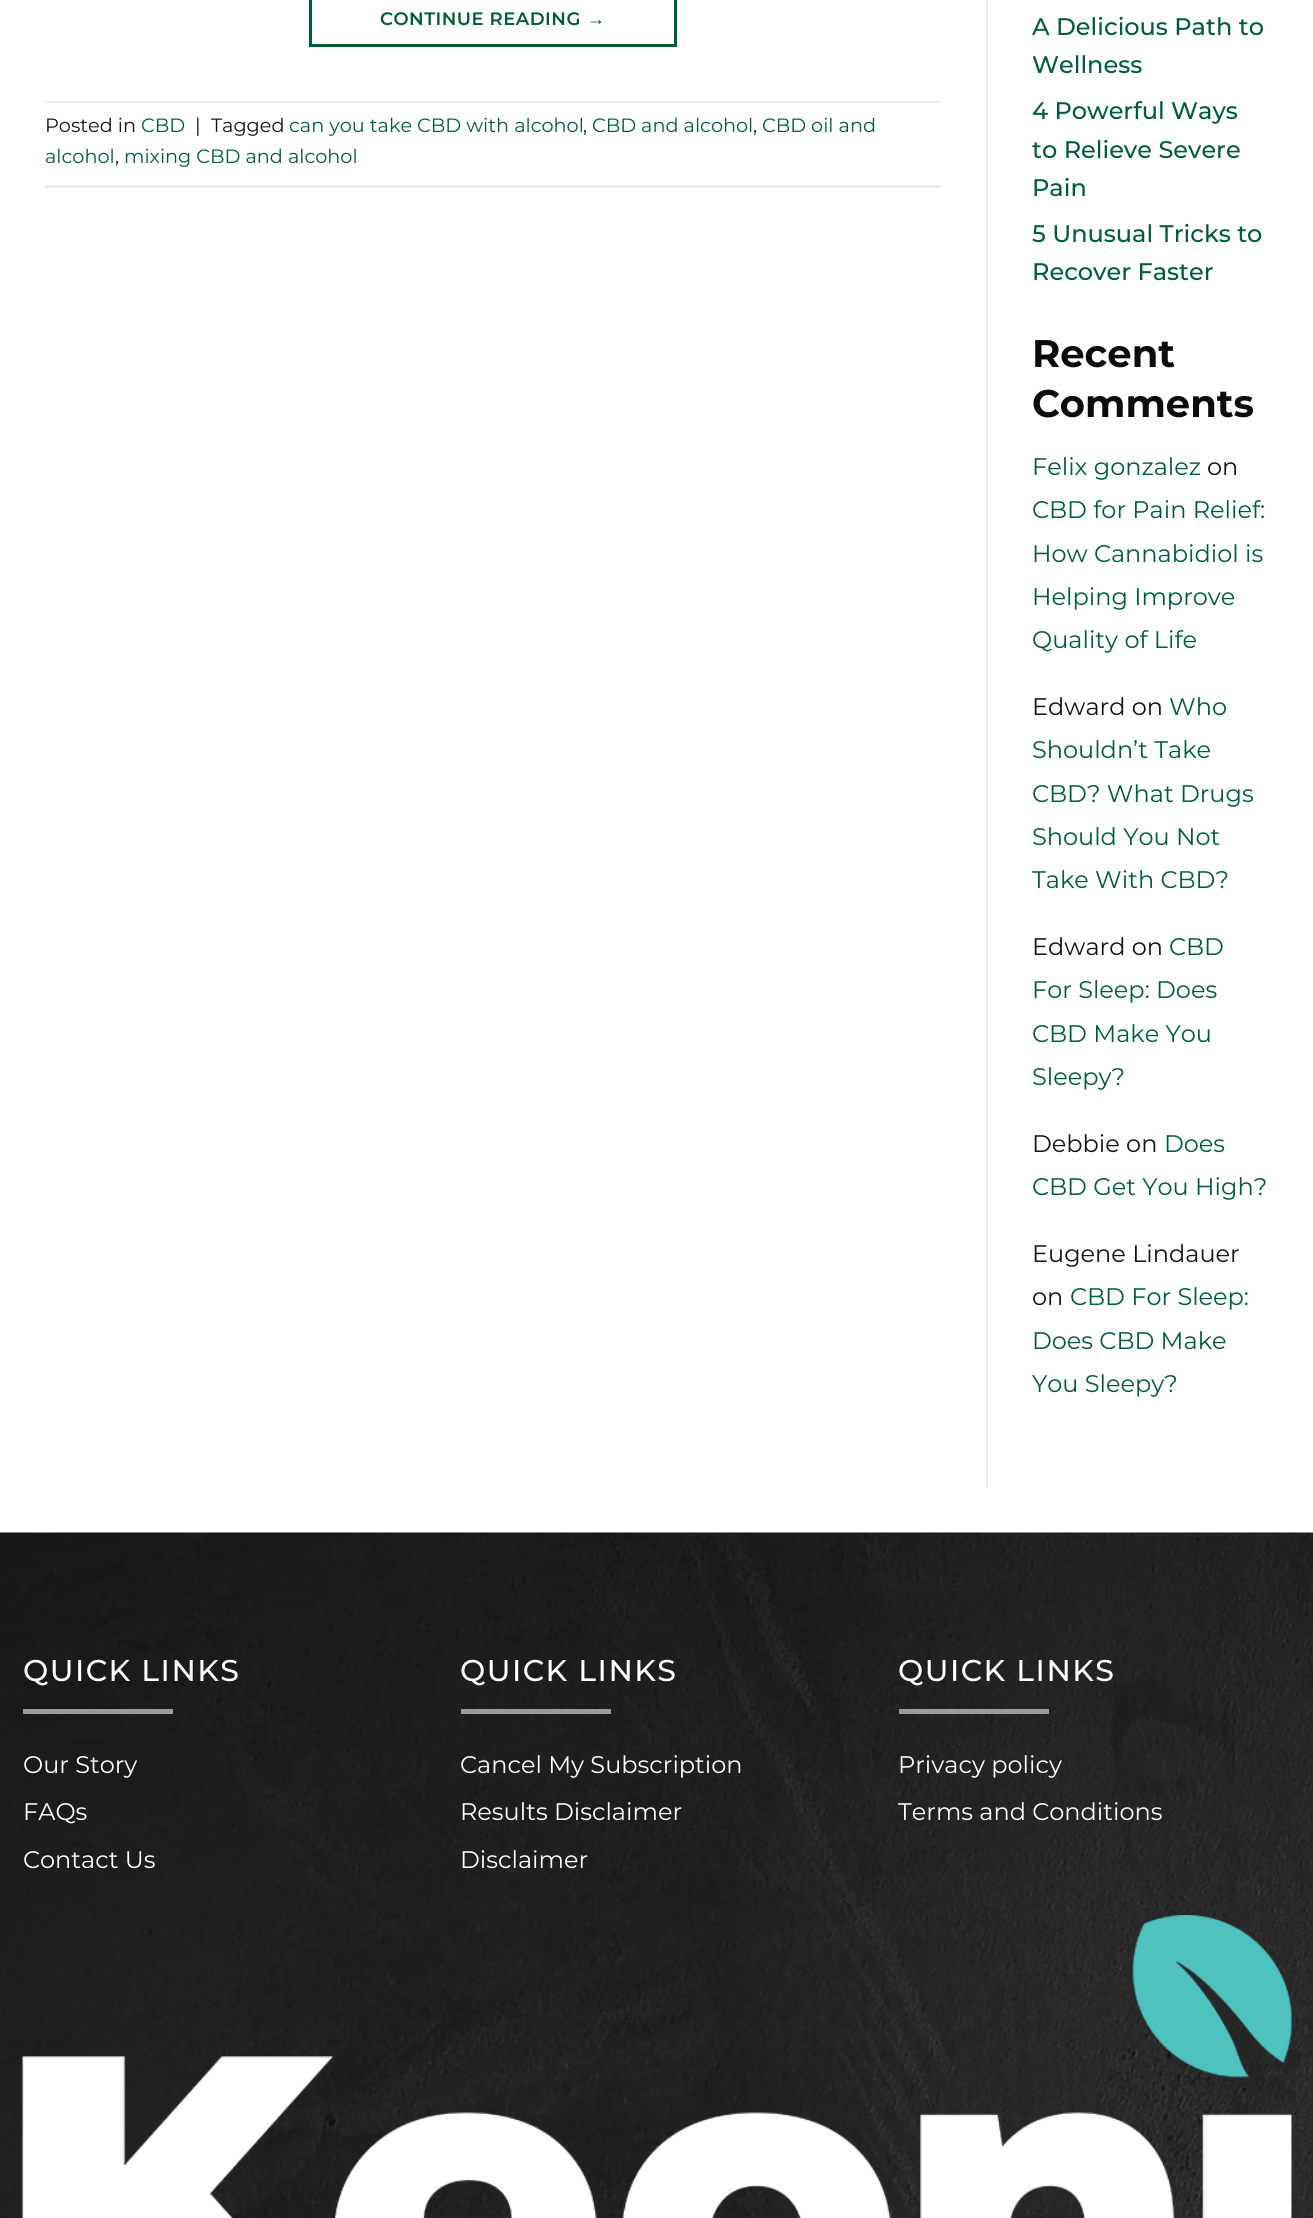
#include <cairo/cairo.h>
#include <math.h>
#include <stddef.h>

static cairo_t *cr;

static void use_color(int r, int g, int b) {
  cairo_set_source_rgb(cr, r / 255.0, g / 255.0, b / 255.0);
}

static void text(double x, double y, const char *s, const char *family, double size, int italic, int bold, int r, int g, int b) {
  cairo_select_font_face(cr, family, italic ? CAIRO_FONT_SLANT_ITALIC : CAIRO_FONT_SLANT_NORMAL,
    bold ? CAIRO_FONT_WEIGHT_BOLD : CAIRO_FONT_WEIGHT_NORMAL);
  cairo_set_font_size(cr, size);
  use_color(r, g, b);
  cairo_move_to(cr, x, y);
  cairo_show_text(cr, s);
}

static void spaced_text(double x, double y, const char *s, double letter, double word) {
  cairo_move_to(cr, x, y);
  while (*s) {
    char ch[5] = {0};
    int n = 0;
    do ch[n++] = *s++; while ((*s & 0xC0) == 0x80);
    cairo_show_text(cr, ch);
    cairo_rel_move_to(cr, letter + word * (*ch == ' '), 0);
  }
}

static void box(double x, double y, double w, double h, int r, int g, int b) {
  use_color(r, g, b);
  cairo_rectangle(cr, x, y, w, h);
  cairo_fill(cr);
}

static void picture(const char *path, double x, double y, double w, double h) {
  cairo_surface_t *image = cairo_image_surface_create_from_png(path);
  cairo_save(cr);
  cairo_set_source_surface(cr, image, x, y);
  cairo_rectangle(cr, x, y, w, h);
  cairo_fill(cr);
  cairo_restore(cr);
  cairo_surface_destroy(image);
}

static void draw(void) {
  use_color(255, 255, 255);
  cairo_paint(cr);
  cairo_rectangle(cr, 310.5, -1.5, 365, 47);
  use_color(0, 95, 50);
  cairo_set_line_width(cr, 3);
  cairo_stroke(cr);
  box(45, 101, 896, 2, 236, 236, 236);
  box(45, 185, 896, 3, 236, 236, 236);
  box(986, 0, 2, 1488, 236, 236, 236);
  picture("img_01.png", 0, 1532, 1313, 686);
  box(23, 1709, 150, 5, 156, 156, 156);
  box(461, 1709, 150, 5, 156, 156, 156);
  box(899, 1709, 150, 5, 156, 156, 156);
  picture("img_02.png", 22, 1915, 1270, 303);
  cairo_select_font_face(cr, "Montserrat SemiBold", CAIRO_FONT_SLANT_NORMAL, CAIRO_FONT_WEIGHT_NORMAL);
  cairo_set_font_size(cr, 18);
  use_color(0, 95, 50);
  spaced_text(380, 25, "CONTINUE READING", 0.5, 0);
  cairo_select_font_face(cr, "Liberation Sans", CAIRO_FONT_SLANT_NORMAL, CAIRO_FONT_WEIGHT_BOLD);
  spaced_text(587, 25, "→", 0.5, 0);
  text(45, 132, "Posted in", "Montserrat", 19.25, 0, 0, 20, 20, 20);
  text(141, 132, "CBD", "Montserrat", 19.25, 0, 0, 0, 95, 50);
  text(195, 132, "|", "Montserrat", 19.25, 0, 0, 20, 20, 20);
  text(211, 132, "Tagged", "Montserrat", 19.25, 0, 0, 20, 20, 20);
  text(289, 132, "can you take CBD with alcohol", "Montserrat", 19.25, 0, 0, 0, 95, 50);
  text(583, 132, ",", "Montserrat", 19.25, 0, 0, 20, 20, 20);
  text(592, 132, "CBD and alcohol", "Montserrat", 19.25, 0, 0, 0, 95, 50);
  text(753, 132, ",", "Montserrat", 19.25, 0, 0, 20, 20, 20);
  text(762, 132, "CBD oil and", "Montserrat", 19.25, 0, 0, 0, 95, 50);
  text(45, 163, "alcohol", "Montserrat", 19.25, 0, 0, 0, 95, 50);
  text(115, 163, ",", "Montserrat", 19.25, 0, 0, 20, 20, 20);
  text(124, 163, "mixing CBD and alcohol", "Montserrat", 19.25, 0, 0, 0, 95, 50);
  text(1032, 35, "A Delicious Path to", "Montserrat Medium", 24, 0, 0, 0, 95, 50);
  text(1032, 73, "Wellness", "Montserrat Medium", 24, 0, 0, 0, 95, 50);
  text(1032, 119, "4 Powerful Ways", "Montserrat Medium", 24, 0, 0, 0, 95, 50);
  text(1032, 158, "to Relieve Severe", "Montserrat Medium", 24, 0, 0, 0, 95, 50);
  text(1032, 196, "Pain", "Montserrat Medium", 24, 0, 0, 0, 95, 50);
  text(1032, 242, "5 Unusual Tricks to", "Montserrat Medium", 24, 0, 0, 0, 95, 50);
  text(1032, 280, "Recover Faster", "Montserrat Medium", 24, 0, 0, 0, 95, 50);
  text(1032, 367, "Recent", "Montserrat", 38.5, 0, 1, 12, 12, 12);
  text(1032, 417, "Comments", "Montserrat", 38.5, 0, 1, 12, 12, 12);
  text(1032, 475, "Felix gonzalez", "Montserrat", 24, 0, 0, 0, 95, 50);
  text(1207, 475, "on", "Montserrat", 24, 0, 0, 20, 20, 20);
  text(1032, 518, "CBD for Pain Relief:", "Montserrat", 24, 0, 0, 0, 95, 50);
  text(1032, 562, "How Cannabidiol is", "Montserrat", 24, 0, 0, 0, 95, 50);
  text(1032, 605, "Helping Improve", "Montserrat", 24, 0, 0, 0, 95, 50);
  text(1032, 648, "Quality of Life", "Montserrat", 24, 0, 0, 0, 95, 50);
  text(1032, 715, "Edward on", "Montserrat", 24, 0, 0, 20, 20, 20);
  text(1169, 715, "Who", "Montserrat", 24, 0, 0, 0, 95, 50);
  text(1032, 758, "Shouldn’t Take", "Montserrat", 24, 0, 0, 0, 95, 50);
  text(1032, 802, "CBD? What Drugs", "Montserrat", 24, 0, 0, 0, 95, 50);
  text(1032, 845, "Should You Not", "Montserrat", 24, 0, 0, 0, 95, 50);
  text(1032, 888, "Take With CBD?", "Montserrat", 24, 0, 0, 0, 95, 50);
  text(1032, 955, "Edward on", "Montserrat", 24, 0, 0, 20, 20, 20);
  text(1169, 955, "CBD", "Montserrat", 24, 0, 0, 0, 95, 50);
  text(1032, 998, "For Sleep: Does", "Montserrat", 24, 0, 0, 0, 95, 50);
  text(1032, 1042, "CBD Make You", "Montserrat", 24, 0, 0, 0, 95, 50);
  text(1032, 1085, "Sleepy?", "Montserrat", 24, 0, 0, 0, 95, 50);
  text(1032, 1152, "Debbie on", "Montserrat", 24, 0, 0, 20, 20, 20);
  text(1164, 1152, "Does", "Montserrat", 24, 0, 0, 0, 95, 50);
  text(1032, 1195, "CBD Get You High?", "Montserrat", 24, 0, 0, 0, 95, 50);
  text(1032, 1262, "Eugene Lindauer", "Montserrat", 24, 0, 0, 20, 20, 20);
  text(1032, 1305, "on", "Montserrat", 24, 0, 0, 20, 20, 20);
  text(1070, 1305, "CBD For Sleep:", "Montserrat", 24, 0, 0, 0, 95, 50);
  text(1032, 1349, "Does CBD Make", "Montserrat", 24, 0, 0, 0, 95, 50);
  text(1032, 1392, "You Sleepy?", "Montserrat", 24, 0, 0, 0, 95, 50);
  cairo_select_font_face(cr, "Montserrat Medium", CAIRO_FONT_SLANT_NORMAL, CAIRO_FONT_WEIGHT_NORMAL);
  cairo_set_font_size(cr, 30);
  use_color(255, 255, 255);
  spaced_text(23, 1681, "QUICK LINKS", 1.5, 0);
  text(23, 1773, "Our Story", "Montserrat", 24, 0, 0, 255, 255, 255);
  text(23, 1820, "FAQs", "Montserrat", 24, 0, 0, 255, 255, 255);
  text(23, 1868, "Contact Us", "Montserrat", 24, 0, 0, 255, 255, 255);
  cairo_select_font_face(cr, "Montserrat Medium", CAIRO_FONT_SLANT_NORMAL, CAIRO_FONT_WEIGHT_NORMAL);
  cairo_set_font_size(cr, 30);
  spaced_text(460, 1681, "QUICK LINKS", 1.5, 0);
  text(460, 1773, "Cancel My Subscription", "Montserrat", 24, 0, 0, 255, 255, 255);
  text(460, 1820, "Results Disclaimer", "Montserrat", 24, 0, 0, 255, 255, 255);
  text(460, 1868, "Disclaimer", "Montserrat", 24, 0, 0, 255, 255, 255);
  cairo_select_font_face(cr, "Montserrat Medium", CAIRO_FONT_SLANT_NORMAL, CAIRO_FONT_WEIGHT_NORMAL);
  cairo_set_font_size(cr, 30);
  spaced_text(898, 1681, "QUICK LINKS", 1.5, 0);
  text(898, 1773, "Privacy policy", "Montserrat", 24, 0, 0, 255, 255, 255);
  text(898, 1820, "Terms and Conditions", "Montserrat", 24, 0, 0, 255, 255, 255);
}

int main(void) {
  cairo_surface_t *surface = cairo_image_surface_create(CAIRO_FORMAT_RGB24, 1313, 2218);
  cr = cairo_create(surface);
  cairo_font_options_t *options = cairo_font_options_create();
  cairo_font_options_set_hint_metrics(options, CAIRO_HINT_METRICS_OFF);
  cairo_font_options_set_hint_style(options, CAIRO_HINT_STYLE_NONE);
  cairo_set_font_options(cr, options);
  cairo_set_miter_limit(cr, 4);
  draw();
  cairo_surface_write_to_png(surface, "out.png");
  cairo_font_options_destroy(options);
  cairo_destroy(cr);
  cairo_surface_destroy(surface);
  return 0;
}
